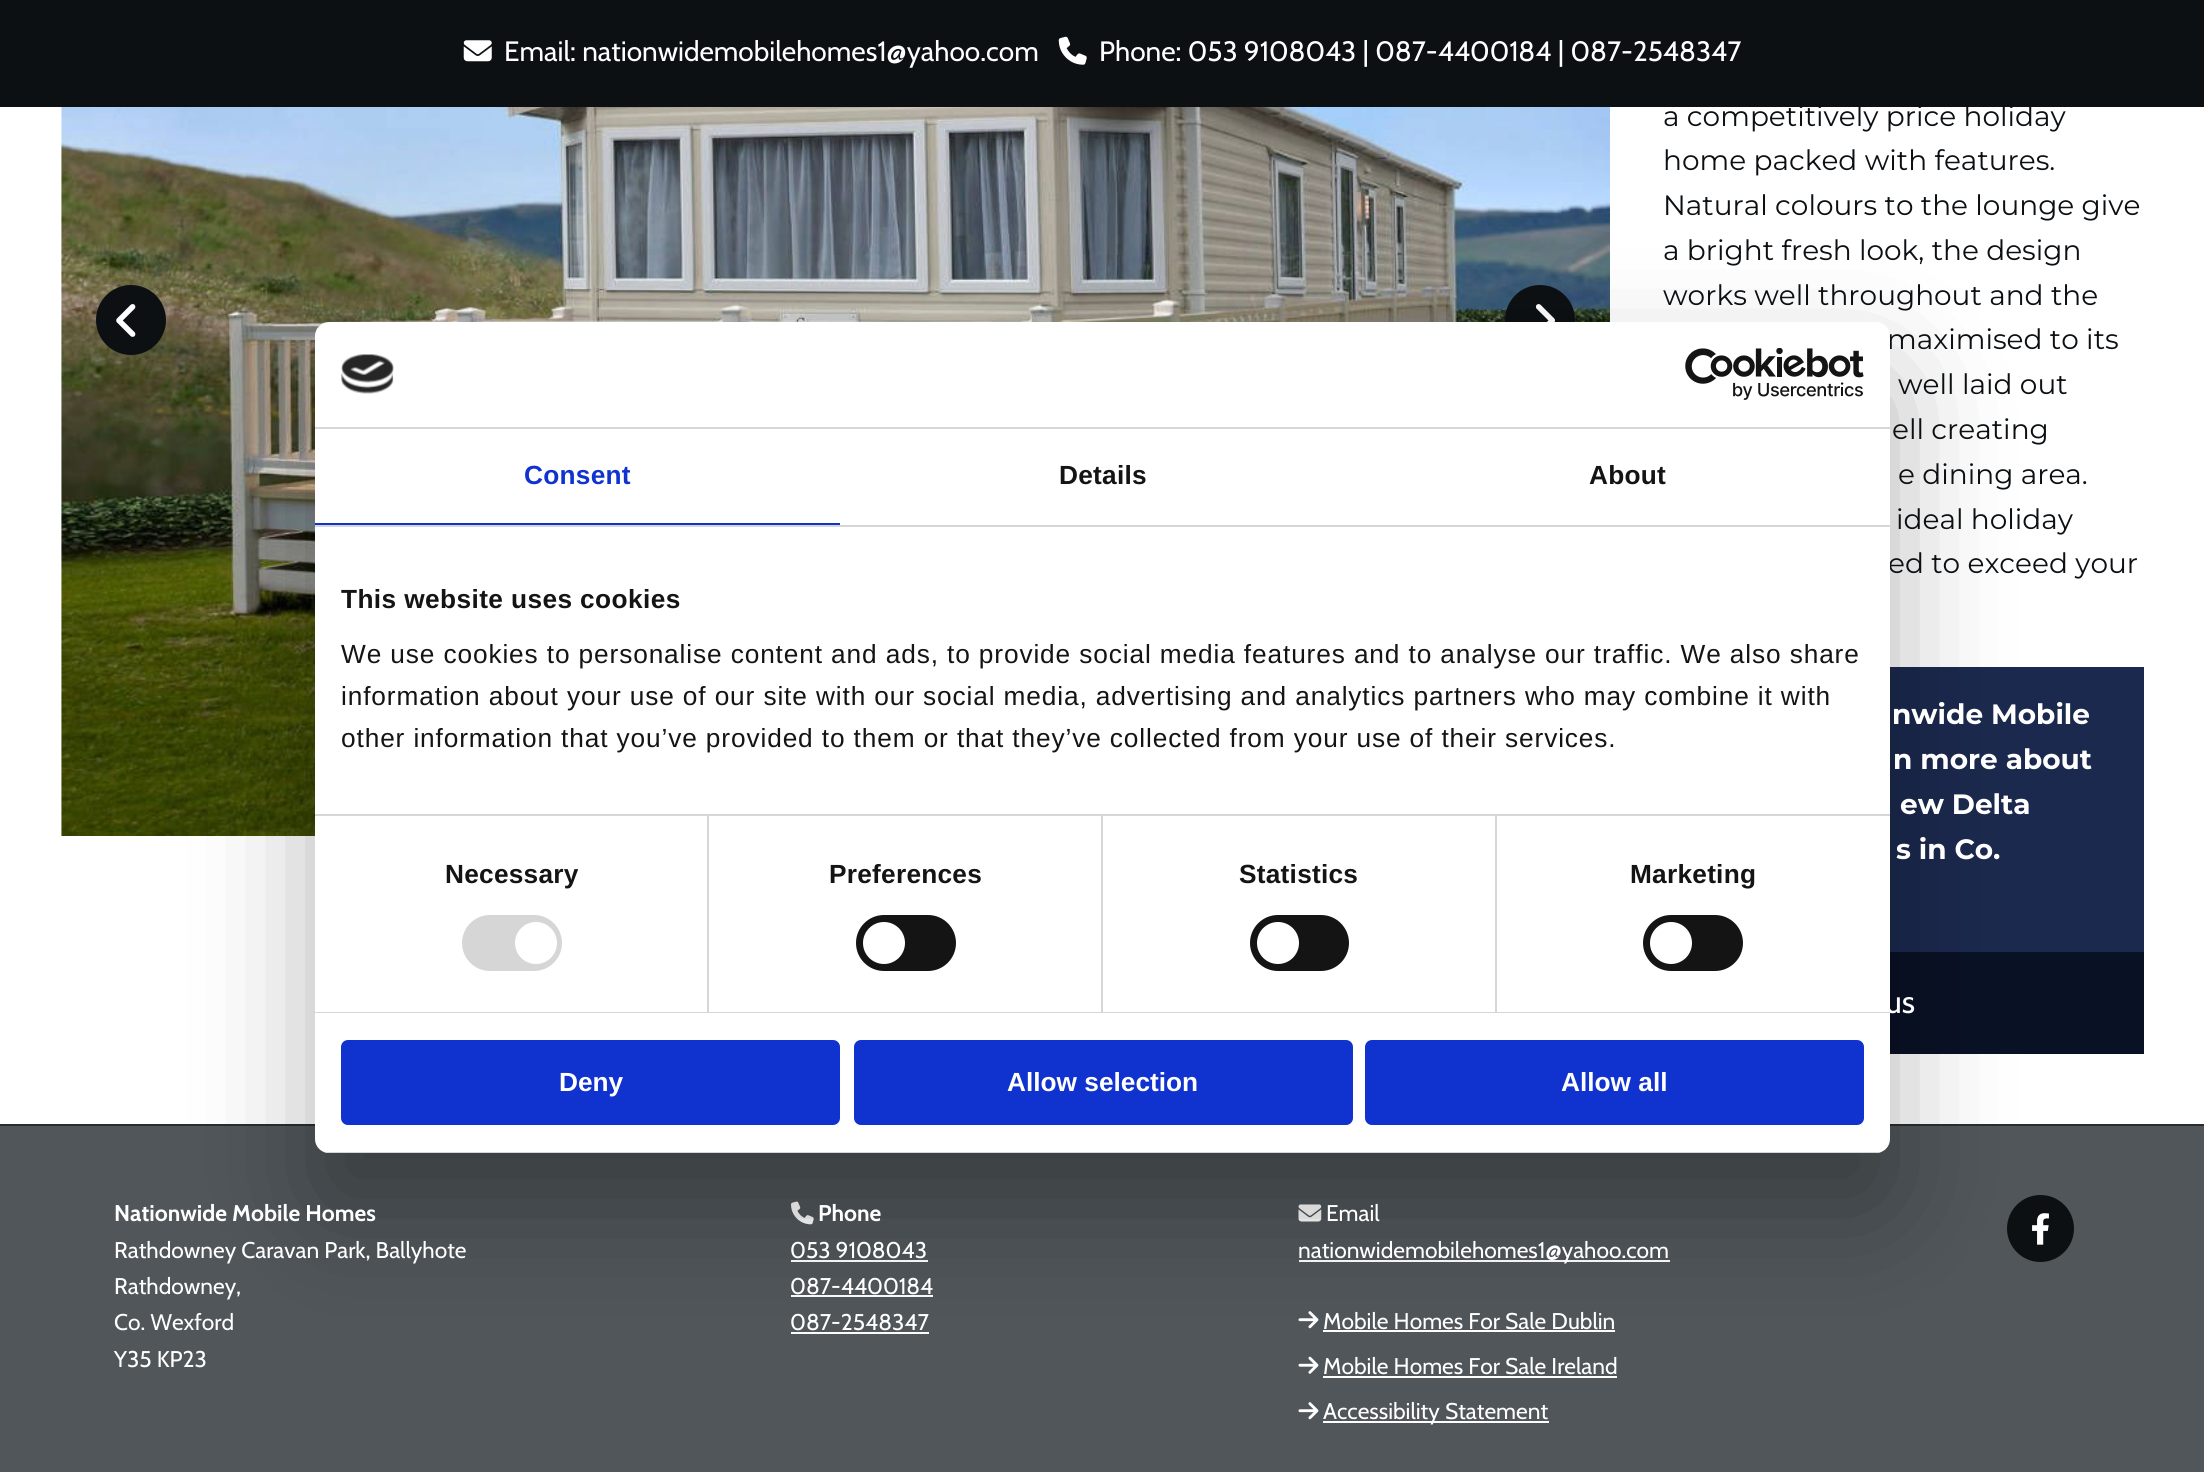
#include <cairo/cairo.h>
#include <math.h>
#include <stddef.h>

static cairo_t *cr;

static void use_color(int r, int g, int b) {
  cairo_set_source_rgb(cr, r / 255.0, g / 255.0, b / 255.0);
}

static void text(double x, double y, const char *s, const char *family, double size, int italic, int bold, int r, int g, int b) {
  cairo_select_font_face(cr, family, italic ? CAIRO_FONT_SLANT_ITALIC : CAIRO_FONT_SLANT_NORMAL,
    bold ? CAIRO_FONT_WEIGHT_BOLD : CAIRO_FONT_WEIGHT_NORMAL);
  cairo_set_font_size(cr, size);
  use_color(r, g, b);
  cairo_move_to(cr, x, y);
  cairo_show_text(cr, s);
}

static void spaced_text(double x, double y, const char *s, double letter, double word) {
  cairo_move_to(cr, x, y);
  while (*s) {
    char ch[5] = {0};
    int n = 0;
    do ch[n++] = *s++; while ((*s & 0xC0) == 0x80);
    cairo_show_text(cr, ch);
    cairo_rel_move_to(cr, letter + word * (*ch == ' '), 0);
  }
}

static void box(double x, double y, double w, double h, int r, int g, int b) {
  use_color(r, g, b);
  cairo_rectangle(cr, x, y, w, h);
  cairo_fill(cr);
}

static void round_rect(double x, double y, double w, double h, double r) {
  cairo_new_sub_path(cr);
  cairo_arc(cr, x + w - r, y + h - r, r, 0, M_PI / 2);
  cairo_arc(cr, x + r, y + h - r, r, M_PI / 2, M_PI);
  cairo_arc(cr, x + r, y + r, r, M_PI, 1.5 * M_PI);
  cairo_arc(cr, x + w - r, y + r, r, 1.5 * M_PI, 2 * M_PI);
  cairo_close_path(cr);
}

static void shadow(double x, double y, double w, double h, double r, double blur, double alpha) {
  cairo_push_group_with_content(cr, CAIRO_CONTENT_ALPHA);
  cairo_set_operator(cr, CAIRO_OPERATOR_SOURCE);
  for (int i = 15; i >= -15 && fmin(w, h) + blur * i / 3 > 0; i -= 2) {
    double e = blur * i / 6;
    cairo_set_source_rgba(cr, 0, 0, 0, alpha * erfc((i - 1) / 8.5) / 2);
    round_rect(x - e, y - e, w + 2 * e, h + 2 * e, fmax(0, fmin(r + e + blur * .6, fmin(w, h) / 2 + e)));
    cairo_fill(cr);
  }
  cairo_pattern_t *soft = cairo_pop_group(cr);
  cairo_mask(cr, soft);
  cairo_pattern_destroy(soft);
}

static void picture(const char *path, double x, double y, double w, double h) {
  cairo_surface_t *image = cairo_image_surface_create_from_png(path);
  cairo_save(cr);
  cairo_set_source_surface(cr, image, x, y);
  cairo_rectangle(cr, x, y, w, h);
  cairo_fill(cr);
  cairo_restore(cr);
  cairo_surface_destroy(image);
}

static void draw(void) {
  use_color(255, 255, 255);
  cairo_paint(cr);
  box(0, 0, 2204, 107, 12, 16, 19);
  picture("img_01.png", 463, 40, 29, 22);
  picture("img_02.png", 1058, 36, 29, 29);
  picture("img_03.png", 61, 107, 1549, 729);
  cairo_arc(cr, 131, 320, 35, 0, 2 * M_PI);
  cairo_fill(cr);
  picture("img_04.png", 116, 304, 20, 33);
  cairo_arc(cr, 1540, 320, 35, 0, 2 * M_PI);
  cairo_fill(cr);
  picture("img_05.png", 1535, 304, 20, 18);
  box(1890, 667, 254, 285, 27, 41, 78);
  box(1890, 952, 254, 102, 9, 17, 37);
  box(0, 1126, 2204, 346, 80, 86, 90);
  box(0, 1124, 2204, 2, 44, 44, 44);
  picture("img_06.png", 791, 1201, 23, 24);
  box(791, 1260, 137, 2, 255, 255, 255);
  box(791, 1295, 142, 2, 255, 255, 255);
  box(791, 1332, 138, 2, 255, 255, 255);
  picture("img_07.png", 1298, 1204, 24, 18);
  box(1299, 1260, 371, 2, 255, 255, 255);
  picture("img_08.png", 1298, 1311, 21, 18);
  box(1323, 1330, 292, 2, 255, 255, 255);
  picture("img_09.png", 1298, 1356, 21, 18);
  box(1323, 1376, 294, 2, 255, 255, 255);
  picture("img_08.png", 1298, 1402, 21, 18);
  box(1323, 1421, 226, 2, 255, 255, 255);
  use_color(12, 16, 19);
  cairo_arc(cr, 2040.5, 1228.5, 33.5, 0, 2 * M_PI);
  cairo_fill(cr);
  picture("img_10.png", 2032, 1213, 17, 32);
  use_color(0, 0, 0);
  shadow(315, 378, 1575, 831, 14, 59.5, 0.3);
  text(504, 61, "Email: nationwidemobilehomes1@yahoo.com", "Cabin", 28, 0, 0, 255, 255, 255);
  text(1099, 61, "Phone: 053 9108043 | 087-4400184 | 087-2548347", "Cabin", 28, 0, 0, 255, 255, 255);
  text(1663, 126, "a competitively price holiday", "Montserrat Thin", 28, 0, 0, 12, 16, 19);
  text(1663, 170, "home packed with features.", "Montserrat Thin", 28, 0, 0, 12, 16, 19);
  text(1663, 215, "Natural colours to the lounge give", "Montserrat Thin", 28, 0, 0, 12, 16, 19);
  text(1663, 260, "a bright fresh look, the design", "Montserrat Thin", 28, 0, 0, 12, 16, 19);
  text(1663, 305, "works well throughout and the", "Montserrat Thin", 28, 0, 0, 12, 16, 19);
  text(1887, 349, "maximised to its", "Montserrat Thin", 28, 0, 0, 12, 16, 19);
  text(1898, 394, "well laid out", "Montserrat Thin", 28, 0, 0, 12, 16, 19);
  text(1892, 439, "ell creating", "Montserrat Thin", 28, 0, 0, 12, 16, 19);
  text(1898, 484, "e dining area.", "Montserrat Thin", 28, 0, 0, 12, 16, 19);
  text(1896, 529, "ideal holiday", "Montserrat Thin", 28, 0, 0, 12, 16, 19);
  text(1888, 573, "ed to exceed your", "Montserrat Thin", 28, 0, 0, 12, 16, 19);
  text(1892, 724, "nwide Mobile", "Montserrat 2 Thin", 28, 0, 0, 255, 255, 255);
  text(1893, 769, "n more about", "Montserrat 2 Thin", 28, 0, 0, 255, 255, 255);
  text(1900, 814, "ew Delta", "Montserrat 2 Thin", 28, 0, 0, 255, 255, 255);
  text(1896, 859, "s in Co.", "Montserrat 2 Thin", 28, 0, 0, 255, 255, 255);
  text(1885, 1013, "us", "Cabin", 32, 0, 0, 255, 255, 255);
  text(114, 1221, "Nationwide Mobile Homes", "Cabin", 22.75, 0, 1, 255, 255, 255);
  text(114, 1258, "Rathdowney Caravan Park, Ballyhote", "Cabin", 22.75, 0, 0, 255, 255, 255);
  text(114, 1294, "Rathdowney,", "Cabin", 22.75, 0, 0, 255, 255, 255);
  text(114, 1330, "Co. Wexford", "Cabin", 22.75, 0, 0, 255, 255, 255);
  text(114, 1367, "Y35 KP23", "Cabin", 22.75, 0, 0, 255, 255, 255);
  text(818, 1221, "Phone", "Cabin", 22.75, 0, 1, 255, 255, 255);
  text(790, 1258, "053 9108043", "Cabin", 22.75, 0, 0, 255, 255, 255);
  text(790, 1294, "087-4400184", "Cabin", 22.75, 0, 0, 255, 255, 255);
  text(790, 1330, "087-2548347", "Cabin", 22.75, 0, 0, 255, 255, 255);
  text(1326, 1221, "Email", "Cabin", 22.75, 0, 0, 255, 255, 255);
  text(1298, 1258, "nationwidemobilehomes1@yahoo.com", "Cabin", 22.75, 0, 0, 255, 255, 255);
  text(1323, 1329, "Mobile Homes For Sale Dublin", "Cabin", 22.75, 0, 0, 255, 255, 255);
  text(1323, 1374, "Mobile Homes For Sale Ireland", "Cabin", 22.75, 0, 0, 255, 255, 255);
  text(1323, 1419, "Accessibility Statement", "Cabin", 22.75, 0, 0, 255, 255, 255);
  round_rect(315, 322, 1575, 831, 14);
  cairo_fill(cr);
  box(315, 427, 1575, 2, 214, 214, 214);
  picture("img_11.png", 341, 354, 53, 40);
  picture("img_12.png", 1685, 348, 179, 52);
  box(315, 525, 1575, 2, 214, 214, 214);
  box(315, 523, 525, 2, 16, 50, 207);
  cairo_select_font_face(cr, "Liberation Sans", CAIRO_FONT_SLANT_NORMAL, CAIRO_FONT_WEIGHT_BOLD);
  cairo_set_font_size(cr, 26.25);
  spaced_text(524, 484, "Consent", 0.25, 0);
  use_color(20, 20, 20);
  spaced_text(1059, 484, "Details", 0.25, 0);
  spaced_text(1589, 484, "About", 0.25, 0);
  box(315, 814, 1575, 2, 214, 214, 214);
  use_color(20, 20, 20);
  spaced_text(341, 608, "This website uses cookies", 0.4, 0);
  cairo_select_font_face(cr, "Liberation Sans", CAIRO_FONT_SLANT_NORMAL, CAIRO_FONT_WEIGHT_NORMAL);
  spaced_text(341, 663, "We use cookies to personalise content and ads, to provide social media features and to analyse our traffic. We also share", 0.88, 0);
  spaced_text(341, 705, "information about your use of our site with our social media, advertising and analytics partners who may combine it with", 0.88, 0);
  spaced_text(341, 747, "other information that you’ve provided to them or that they’ve collected from your use of their services.", 0.88, 0);
  box(315, 1012, 1575, 1, 214, 214, 214);
  box(707, 816, 2, 196, 214, 214, 214);
  cairo_select_font_face(cr, "Liberation Sans", CAIRO_FONT_SLANT_NORMAL, CAIRO_FONT_WEIGHT_BOLD);
  use_color(20, 20, 20);
  spaced_text(445, 883, "Necessary", 0.25, 0);
  use_color(214, 214, 214);
  round_rect(462, 915, 100, 56, 28);
  cairo_fill(cr);
  use_color(255, 255, 255);
  cairo_arc(cr, 536, 943, 21, 0, 2 * M_PI);
  cairo_fill(cr);
  box(1101, 816, 2, 196, 214, 214, 214);
  use_color(20, 20, 20);
  spaced_text(829, 883, "Preferences", 0.25, 0);
  round_rect(856, 915, 100, 56, 28);
  cairo_fill(cr);
  use_color(255, 255, 255);
  cairo_arc(cr, 884, 943, 21, 0, 2 * M_PI);
  cairo_fill(cr);
  box(1495, 816, 2, 196, 214, 214, 214);
  use_color(20, 20, 20);
  spaced_text(1239, 883, "Statistics", 0.25, 0);
  round_rect(1250, 915, 99, 56, 28);
  cairo_fill(cr);
  use_color(255, 255, 255);
  cairo_arc(cr, 1278, 943, 21, 0, 2 * M_PI);
  cairo_fill(cr);
  use_color(20, 20, 20);
  spaced_text(1630, 883, "Marketing", 0.25, 0);
  round_rect(1643, 915, 100, 56, 28);
  cairo_fill(cr);
  use_color(255, 255, 255);
  cairo_arc(cr, 1671, 943, 21, 0, 2 * M_PI);
  cairo_fill(cr);
  cairo_save(cr);
  round_rect(315, 322, 1575, 831, 14);
  cairo_clip(cr);
  box(324, 1152, 1557, 1, 214, 214, 214);
  cairo_restore(cr);
  use_color(16, 50, 207);
  round_rect(343, 1042, 495, 81, 5);
  cairo_fill_preserve(cr);
  cairo_set_line_width(cr, 4);
  cairo_stroke(cr);
  text(559, 1091, "Deny", "Liberation Sans", 26.25, 0, 1, 255, 255, 255);
  use_color(16, 50, 207);
  round_rect(856, 1042, 495, 81, 5);
  cairo_fill_preserve(cr);
  cairo_stroke(cr);
  text(1007, 1091, "Allow selection", "Liberation Sans", 26.25, 0, 1, 255, 255, 255);
  use_color(16, 50, 207);
  round_rect(1367, 1042, 495, 81, 5);
  cairo_fill_preserve(cr);
  cairo_stroke(cr);
  text(1561, 1091, "Allow all", "Liberation Sans", 26.25, 0, 1, 255, 255, 255);
}

int main(void) {
  cairo_surface_t *surface = cairo_image_surface_create(CAIRO_FORMAT_RGB24, 2204, 1472);
  cr = cairo_create(surface);
  cairo_font_options_t *options = cairo_font_options_create();
  cairo_font_options_set_hint_metrics(options, CAIRO_HINT_METRICS_OFF);
  cairo_font_options_set_hint_style(options, CAIRO_HINT_STYLE_NONE);
  cairo_set_font_options(cr, options);
  cairo_set_miter_limit(cr, 4);
  draw();
  cairo_surface_write_to_png(surface, "out.png");
  cairo_font_options_destroy(options);
  cairo_destroy(cr);
  cairo_surface_destroy(surface);
  return 0;
}
